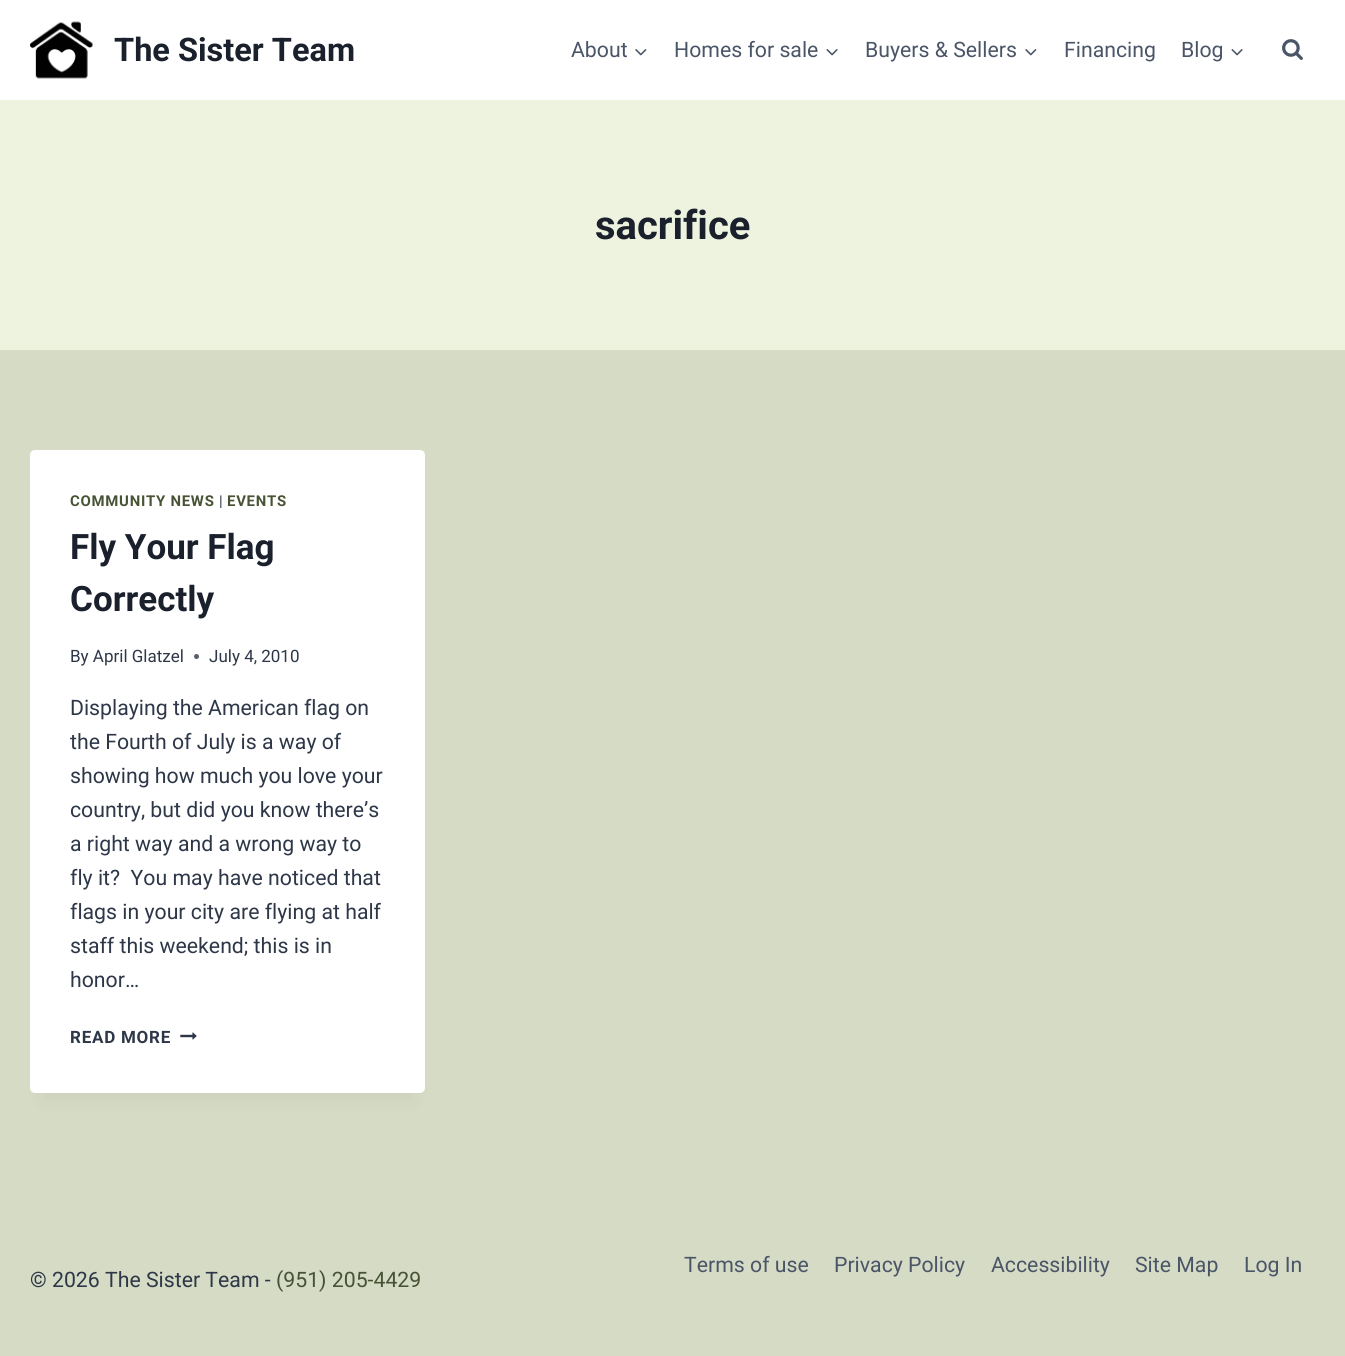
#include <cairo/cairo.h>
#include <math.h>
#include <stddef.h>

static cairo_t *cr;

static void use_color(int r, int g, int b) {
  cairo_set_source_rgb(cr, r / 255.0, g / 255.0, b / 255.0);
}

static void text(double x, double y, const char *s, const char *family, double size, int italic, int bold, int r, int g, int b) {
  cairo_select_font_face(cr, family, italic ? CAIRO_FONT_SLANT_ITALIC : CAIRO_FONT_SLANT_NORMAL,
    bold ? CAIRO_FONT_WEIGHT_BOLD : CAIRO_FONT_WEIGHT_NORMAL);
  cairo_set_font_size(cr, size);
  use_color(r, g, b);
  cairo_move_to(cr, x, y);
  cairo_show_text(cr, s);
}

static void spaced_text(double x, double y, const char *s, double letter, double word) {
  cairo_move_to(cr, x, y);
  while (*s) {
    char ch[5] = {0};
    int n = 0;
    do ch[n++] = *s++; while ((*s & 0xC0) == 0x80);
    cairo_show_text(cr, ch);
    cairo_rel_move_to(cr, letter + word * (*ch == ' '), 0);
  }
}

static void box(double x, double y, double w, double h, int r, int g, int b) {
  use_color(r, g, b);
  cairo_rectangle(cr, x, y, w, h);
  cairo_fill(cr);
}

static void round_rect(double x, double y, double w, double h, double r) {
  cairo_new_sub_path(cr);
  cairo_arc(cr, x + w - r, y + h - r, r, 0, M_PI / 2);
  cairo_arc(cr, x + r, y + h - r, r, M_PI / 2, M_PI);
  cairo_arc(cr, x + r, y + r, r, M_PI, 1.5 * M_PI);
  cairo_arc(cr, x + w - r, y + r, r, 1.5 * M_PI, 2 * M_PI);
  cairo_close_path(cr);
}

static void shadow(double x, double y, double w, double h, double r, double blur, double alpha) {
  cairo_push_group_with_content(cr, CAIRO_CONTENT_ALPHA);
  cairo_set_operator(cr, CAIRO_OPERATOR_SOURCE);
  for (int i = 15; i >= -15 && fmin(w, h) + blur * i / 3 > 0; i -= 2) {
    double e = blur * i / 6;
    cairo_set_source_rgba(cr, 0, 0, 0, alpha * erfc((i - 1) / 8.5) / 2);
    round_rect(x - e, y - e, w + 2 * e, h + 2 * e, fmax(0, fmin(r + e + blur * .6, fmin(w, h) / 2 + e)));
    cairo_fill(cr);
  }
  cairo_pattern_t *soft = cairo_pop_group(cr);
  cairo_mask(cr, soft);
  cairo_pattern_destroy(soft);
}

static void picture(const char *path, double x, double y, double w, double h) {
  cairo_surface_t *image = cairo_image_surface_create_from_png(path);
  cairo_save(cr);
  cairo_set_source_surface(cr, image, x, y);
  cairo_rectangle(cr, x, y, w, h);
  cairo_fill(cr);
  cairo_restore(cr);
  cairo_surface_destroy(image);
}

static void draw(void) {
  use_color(213, 219, 196);
  cairo_paint(cr);
  box(0, 0, 1345, 100, 255, 255, 255);
  picture("img_01.png", 30, 21, 63, 58);
  picture("img_02.png", 635, 49, 12, 7);
  picture("img_03.png", 826, 49, 12, 7);
  picture("img_02.png", 1025, 49, 12, 7);
  picture("img_03.png", 1231, 49, 12, 7);
  picture("img_04.png", 1282, 39, 21, 21);
  box(0, 100, 1345, 250, 238, 243, 224);
  use_color(0, 0, 0);
  shadow(43, 481, 370, 618, 0, 9.5, 0.05);
  use_color(255, 255, 255);
  round_rect(30, 450, 395, 643, 5);
  cairo_fill(cr);
  use_color(87, 95, 109);
  cairo_arc(cr, 196.5, 656.5, 2.5, 0, 2 * M_PI);
  cairo_fill(cr);
  picture("img_05.png", 180, 1032, 17, 8);
  text(114, 61, "The Sister Team", "Roboto", 32.5, 0, 1, 26, 32, 44);
  text(571, 57, "About", "Roboto", 21.25, 0, 0, 74, 85, 104);
  text(674, 57, "Homes for sale", "Roboto", 21.25, 0, 0, 74, 85, 104);
  text(865, 57, "Buyers & Sellers", "Roboto", 21.25, 0, 0, 74, 85, 104);
  text(1064, 57, "Financing", "Roboto", 21.25, 0, 0, 74, 85, 104);
  text(1181, 57, "Blog", "Roboto", 21.25, 0, 0, 74, 85, 104);
  text(595, 239, "sacrifice", "Roboto", 40, 0, 1, 26, 32, 44);
  cairo_set_font_size(cr, 14.9);
  use_color(71, 83, 52);
  spaced_text(70, 506, "COMMUNITY NEWS", 0.75, 0);
  cairo_select_font_face(cr, "Roboto", CAIRO_FONT_SLANT_NORMAL, CAIRO_FONT_WEIGHT_NORMAL);
  use_color(45, 55, 72);
  spaced_text(219, 506, "|", 0.75, 0);
  cairo_select_font_face(cr, "Roboto", CAIRO_FONT_SLANT_NORMAL, CAIRO_FONT_WEIGHT_BOLD);
  use_color(71, 83, 52);
  spaced_text(227, 506, "EVENTS", 0.75, 0);
  text(70, 559, "Fly Your Flag", "Roboto", 35, 0, 1, 26, 32, 44);
  text(70, 611, "Correctly", "Roboto", 35, 0, 1, 26, 32, 44);
  text(70, 662, "By April Glatzel", "Roboto", 17, 0, 0, 45, 55, 72);
  text(209, 662, "July 4, 2010", "Roboto", 17, 0, 0, 45, 55, 72);
  text(70, 715, "Displaying the American flag on", "Roboto", 21.25, 0, 0, 45, 55, 72);
  text(70, 749, "the Fourth of July is a way of", "Roboto", 21.25, 0, 0, 45, 55, 72);
  text(70, 783, "showing how much you love your", "Roboto", 21.25, 0, 0, 45, 55, 72);
  text(70, 817, "country, but did you know there’s", "Roboto", 21.25, 0, 0, 45, 55, 72);
  text(70, 851, "a right way and a wrong way to", "Roboto", 21.25, 0, 0, 45, 55, 72);
  text(70, 885, "fly it?  You may have noticed that", "Roboto", 21.25, 0, 0, 45, 55, 72);
  text(70, 919, "flags in your city are flying at half", "Roboto", 21.25, 0, 0, 45, 55, 72);
  text(70, 953, "staff this weekend; this is in", "Roboto", 21.25, 0, 0, 45, 55, 72);
  text(70, 987, "honor…", "Roboto", 21.25, 0, 0, 45, 55, 72);
  cairo_select_font_face(cr, "Roboto", CAIRO_FONT_SLANT_NORMAL, CAIRO_FONT_WEIGHT_BOLD);
  cairo_set_font_size(cr, 17);
  spaced_text(70, 1043, "READ MORE", 0.75, 0);
  text(684, 1272, "Terms of use", "Roboto", 21.25, 0, 0, 74, 85, 104);
  text(834, 1272, "Privacy Policy", "Roboto", 21.25, 0, 0, 74, 85, 104);
  text(991, 1272, "Accessibility", "Roboto", 21.25, 0, 0, 74, 85, 104);
  text(1135, 1272, "Site Map", "Roboto", 21.25, 0, 0, 74, 85, 104);
  text(1244, 1272, "Log In", "Roboto", 21.25, 0, 0, 74, 85, 104);
  text(30, 1287, "© 2026 The Sister Team -", "Roboto", 21.25, 0, 0, 45, 55, 72);
  text(276, 1287, "(951) 205-4429", "Roboto", 21.25, 0, 0, 71, 83, 52);
}

int main(void) {
  cairo_surface_t *surface = cairo_image_surface_create(CAIRO_FORMAT_RGB24, 1345, 1356);
  cr = cairo_create(surface);
  cairo_font_options_t *options = cairo_font_options_create();
  cairo_font_options_set_hint_metrics(options, CAIRO_HINT_METRICS_OFF);
  cairo_font_options_set_hint_style(options, CAIRO_HINT_STYLE_NONE);
  cairo_set_font_options(cr, options);
  cairo_set_miter_limit(cr, 4);
  draw();
  cairo_surface_write_to_png(surface, "out.png");
  cairo_font_options_destroy(options);
  cairo_destroy(cr);
  cairo_surface_destroy(surface);
  return 0;
}
